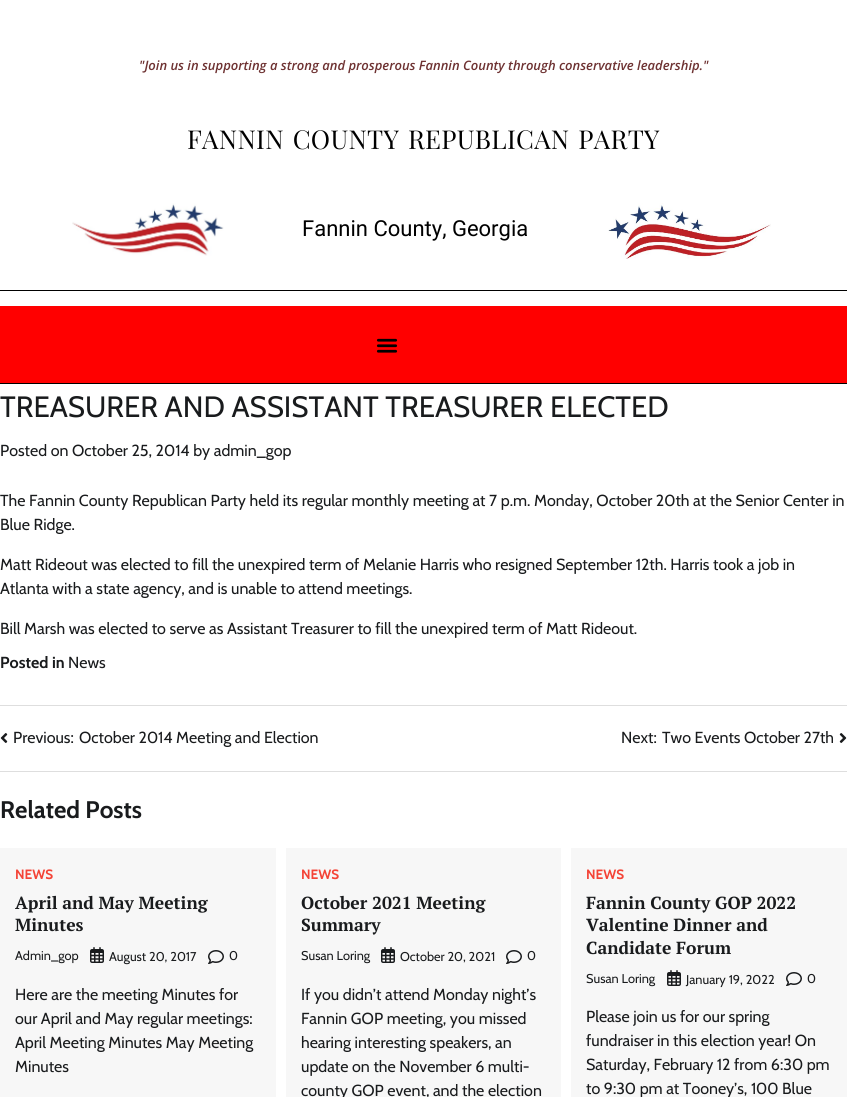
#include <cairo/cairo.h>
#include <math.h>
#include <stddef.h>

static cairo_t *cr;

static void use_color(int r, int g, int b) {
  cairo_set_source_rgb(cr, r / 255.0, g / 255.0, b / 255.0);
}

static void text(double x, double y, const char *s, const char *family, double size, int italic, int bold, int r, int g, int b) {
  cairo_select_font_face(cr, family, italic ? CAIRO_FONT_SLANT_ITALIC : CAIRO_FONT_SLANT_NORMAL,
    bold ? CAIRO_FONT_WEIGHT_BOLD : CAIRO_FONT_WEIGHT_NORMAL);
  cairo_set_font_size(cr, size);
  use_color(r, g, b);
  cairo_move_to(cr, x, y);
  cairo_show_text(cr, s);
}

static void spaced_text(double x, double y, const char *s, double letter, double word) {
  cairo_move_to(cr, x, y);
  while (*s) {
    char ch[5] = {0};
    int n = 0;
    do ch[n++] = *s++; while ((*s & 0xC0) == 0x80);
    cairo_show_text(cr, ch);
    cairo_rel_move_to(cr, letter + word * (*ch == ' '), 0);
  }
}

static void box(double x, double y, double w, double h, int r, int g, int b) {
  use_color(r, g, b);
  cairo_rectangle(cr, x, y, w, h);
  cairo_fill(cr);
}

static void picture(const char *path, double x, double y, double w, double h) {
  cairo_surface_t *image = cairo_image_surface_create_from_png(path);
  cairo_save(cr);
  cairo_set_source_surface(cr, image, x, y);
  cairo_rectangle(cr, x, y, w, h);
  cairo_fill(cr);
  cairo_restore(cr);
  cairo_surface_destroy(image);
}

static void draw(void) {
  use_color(255, 255, 255);
  cairo_paint(cr);
  box(0, 290, 847, 1, 0, 0, 0);
  picture("img_01.png", 72, 203, 152, 53);
  picture("img_02.png", 608, 203, 163, 56);
  box(0, 306, 847, 77, 255, 0, 0);
  box(0, 383, 847, 1, 0, 0, 0);
  picture("img_03.png", 376, 338, 22, 15);
  box(0, 705, 847, 1, 222, 222, 222);
  box(0, 771, 847, 1, 222, 222, 222);
  picture("img_04.png", 0, 733, 8, 10);
  picture("img_05.png", 839, 733, 8, 10);
  box(0, 848, 276, 249, 247, 247, 247);
  picture("img_06.png", 90, 947, 14, 16);
  picture("img_07.png", 208, 950, 16, 14);
  box(286, 848, 275, 249, 247, 247, 247);
  picture("img_06.png", 381, 947, 14, 16);
  picture("img_07.png", 506, 950, 16, 14);
  box(571, 848, 276, 249, 247, 247, 247);
  picture("img_06.png", 667, 970, 14, 16);
  picture("img_07.png", 786, 972, 16, 14);
  text(139, 70, "\"Join us in supporting a strong and prosperous Fannin County through conservative leadership.\"", "Open Sans SemiBold", 13, 1, 0, 110, 50, 50);
  cairo_select_font_face(cr, "Playfair Display", CAIRO_FONT_SLANT_NORMAL, CAIRO_FONT_WEIGHT_NORMAL);
  cairo_set_font_size(cr, 26);
  use_color(0, 0, 0);
  spaced_text(187, 149, "FANNIN COUNTY REPUBLICAN PARTY", 0.3, 2);
  text(302, 236, "Fannin County, Georgia", "Roboto", 22, 0, 0, 0, 0, 0);
  text(0, 417, "TREASURER AND ASSISTANT TREASURER ELECTED", "Cabin", 29.4, 0, 0, 25, 27, 29);
  text(0, 456, "Posted on October 25, 2014 by admin_gop", "Cabin", 16, 0, 0, 25, 27, 29);
  text(0, 506, "The Fannin County Republican Party held its regular monthly meeting at 7 p.m. Monday, October 20th at the Senior Center in", "Cabin", 16, 0, 0, 25, 27, 29);
  text(0, 530, "Blue Ridge.", "Cabin", 16, 0, 0, 25, 27, 29);
  text(0, 570, "Matt Rideout was elected to fill the unexpired term of Melanie Harris who resigned September 12th. Harris took a job in", "Cabin", 16, 0, 0, 25, 27, 29);
  text(0, 594, "Atlanta with a state agency, and is unable to attend meetings.", "Cabin", 16, 0, 0, 25, 27, 29);
  text(0, 634, "Bill Marsh was elected to serve as Assistant Treasurer to fill the unexpired term of Matt Rideout.", "Cabin", 16, 0, 0, 25, 27, 29);
  text(0, 668, "Posted in", "Cabin", 16, 0, 1, 25, 27, 29);
  text(68, 668, "News", "Cabin", 16, 0, 0, 25, 27, 29);
  text(13, 743, "Previous:", "Cabin", 16, 0, 0, 25, 27, 29);
  text(79, 743, "October 2014 Meeting and Election", "Cabin", 16, 0, 0, 25, 27, 29);
  text(621, 743, "Next:", "Cabin", 16, 0, 0, 25, 27, 29);
  text(662, 743, "Two Events October 27th", "Cabin", 16, 0, 0, 25, 27, 29);
  text(0, 818, "Related Posts", "Cabin", 24, 0, 1, 25, 27, 29);
  text(15, 879, "NEWS", "Cabin", 13.5, 0, 1, 244, 67, 54);
  text(15, 909, "April and May Meeting", "PT Serif", 17.5, 0, 1, 25, 27, 29);
  text(15, 931, "Minutes", "PT Serif", 17.5, 0, 1, 25, 27, 29);
  text(15, 960, "Admin_gop", "Cabin", 12.75, 0, 0, 25, 27, 29);
  text(109, 961, "August 20, 2017", "Cabin", 12.75, 0, 0, 25, 27, 29);
  text(229, 960, "0", "Cabin", 12.75, 0, 0, 25, 27, 29);
  text(15, 1000, "Here are the meeting Minutes for", "Cabin", 16, 0, 0, 25, 27, 29);
  text(15, 1024, "our April and May regular meetings:", "Cabin", 16, 0, 0, 25, 27, 29);
  text(15, 1048, "April Meeting Minutes May Meeting", "Cabin", 16, 0, 0, 25, 27, 29);
  text(15, 1072, "Minutes", "Cabin", 16, 0, 0, 25, 27, 29);
  text(301, 879, "NEWS", "Cabin", 13.5, 0, 1, 244, 67, 54);
  text(301, 909, "October 2021 Meeting", "PT Serif", 17.5, 0, 1, 25, 27, 29);
  text(301, 931, "Summary", "PT Serif", 17.5, 0, 1, 25, 27, 29);
  text(301, 960, "Susan Loring", "Cabin", 12.75, 0, 0, 25, 27, 29);
  text(400, 961, "October 20, 2021", "Cabin", 12.75, 0, 0, 25, 27, 29);
  text(527, 960, "0", "Cabin", 12.75, 0, 0, 25, 27, 29);
  text(301, 1000, "If you didn’t attend Monday night’s", "Cabin", 16, 0, 0, 25, 27, 29);
  text(301, 1024, "Fannin GOP meeting, you missed", "Cabin", 16, 0, 0, 25, 27, 29);
  text(301, 1048, "hearing interesting speakers, an", "Cabin", 16, 0, 0, 25, 27, 29);
  text(301, 1072, "update on the November 6 multi-", "Cabin", 16, 0, 0, 25, 27, 29);
  text(301, 1096, "county GOP event, and the election", "Cabin", 16, 0, 0, 25, 27, 29);
  text(586, 879, "NEWS", "Cabin", 13.5, 0, 1, 244, 67, 54);
  text(586, 909, "Fannin County GOP 2022", "PT Serif", 17.5, 0, 1, 25, 27, 29);
  text(586, 931, "Valentine Dinner and", "PT Serif", 17.5, 0, 1, 25, 27, 29);
  text(586, 954, "Candidate Forum", "PT Serif", 17.5, 0, 1, 25, 27, 29);
  text(586, 983, "Susan Loring", "Cabin", 12.75, 0, 0, 25, 27, 29);
  text(686, 984, "January 19, 2022", "Cabin", 12.75, 0, 0, 25, 27, 29);
  text(807, 983, "0", "Cabin", 12.75, 0, 0, 25, 27, 29);
  text(586, 1022, "Please join us for our spring", "Cabin", 16, 0, 0, 25, 27, 29);
  text(586, 1046, "fundraiser in this election year! On", "Cabin", 16, 0, 0, 25, 27, 29);
  text(586, 1070, "Saturday, February 12 from 6:30 pm", "Cabin", 16, 0, 0, 25, 27, 29);
  text(586, 1094, "to 9:30 pm at Tooney’s, 100 Blue", "Cabin", 16, 0, 0, 25, 27, 29);
}

int main(void) {
  cairo_surface_t *surface = cairo_image_surface_create(CAIRO_FORMAT_RGB24, 847, 1097);
  cr = cairo_create(surface);
  cairo_font_options_t *options = cairo_font_options_create();
  cairo_font_options_set_hint_metrics(options, CAIRO_HINT_METRICS_OFF);
  cairo_font_options_set_hint_style(options, CAIRO_HINT_STYLE_NONE);
  cairo_set_font_options(cr, options);
  cairo_set_miter_limit(cr, 4);
  draw();
  cairo_surface_write_to_png(surface, "out.png");
  cairo_font_options_destroy(options);
  cairo_destroy(cr);
  cairo_surface_destroy(surface);
  return 0;
}
